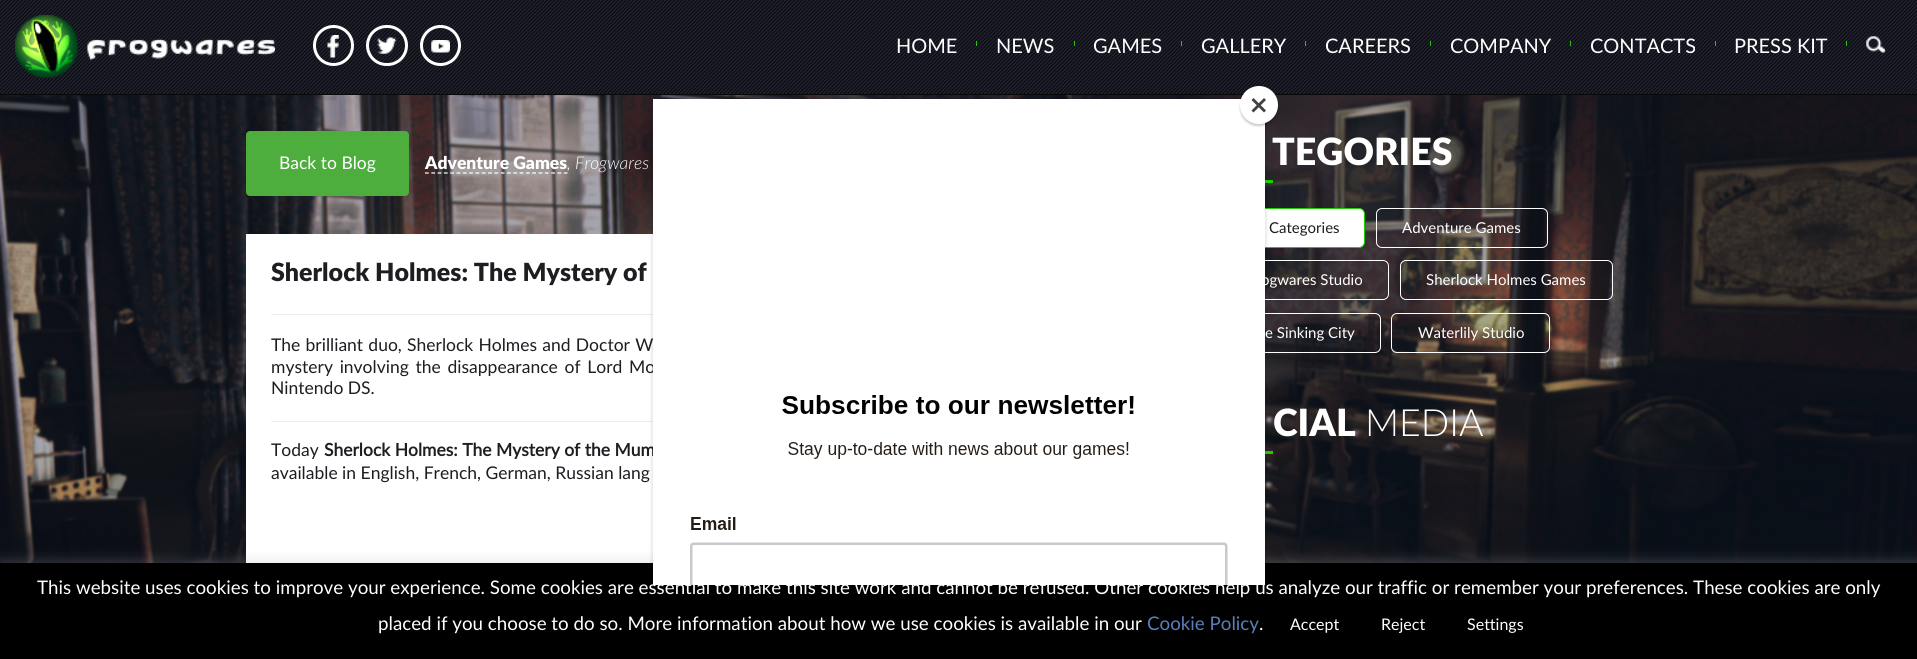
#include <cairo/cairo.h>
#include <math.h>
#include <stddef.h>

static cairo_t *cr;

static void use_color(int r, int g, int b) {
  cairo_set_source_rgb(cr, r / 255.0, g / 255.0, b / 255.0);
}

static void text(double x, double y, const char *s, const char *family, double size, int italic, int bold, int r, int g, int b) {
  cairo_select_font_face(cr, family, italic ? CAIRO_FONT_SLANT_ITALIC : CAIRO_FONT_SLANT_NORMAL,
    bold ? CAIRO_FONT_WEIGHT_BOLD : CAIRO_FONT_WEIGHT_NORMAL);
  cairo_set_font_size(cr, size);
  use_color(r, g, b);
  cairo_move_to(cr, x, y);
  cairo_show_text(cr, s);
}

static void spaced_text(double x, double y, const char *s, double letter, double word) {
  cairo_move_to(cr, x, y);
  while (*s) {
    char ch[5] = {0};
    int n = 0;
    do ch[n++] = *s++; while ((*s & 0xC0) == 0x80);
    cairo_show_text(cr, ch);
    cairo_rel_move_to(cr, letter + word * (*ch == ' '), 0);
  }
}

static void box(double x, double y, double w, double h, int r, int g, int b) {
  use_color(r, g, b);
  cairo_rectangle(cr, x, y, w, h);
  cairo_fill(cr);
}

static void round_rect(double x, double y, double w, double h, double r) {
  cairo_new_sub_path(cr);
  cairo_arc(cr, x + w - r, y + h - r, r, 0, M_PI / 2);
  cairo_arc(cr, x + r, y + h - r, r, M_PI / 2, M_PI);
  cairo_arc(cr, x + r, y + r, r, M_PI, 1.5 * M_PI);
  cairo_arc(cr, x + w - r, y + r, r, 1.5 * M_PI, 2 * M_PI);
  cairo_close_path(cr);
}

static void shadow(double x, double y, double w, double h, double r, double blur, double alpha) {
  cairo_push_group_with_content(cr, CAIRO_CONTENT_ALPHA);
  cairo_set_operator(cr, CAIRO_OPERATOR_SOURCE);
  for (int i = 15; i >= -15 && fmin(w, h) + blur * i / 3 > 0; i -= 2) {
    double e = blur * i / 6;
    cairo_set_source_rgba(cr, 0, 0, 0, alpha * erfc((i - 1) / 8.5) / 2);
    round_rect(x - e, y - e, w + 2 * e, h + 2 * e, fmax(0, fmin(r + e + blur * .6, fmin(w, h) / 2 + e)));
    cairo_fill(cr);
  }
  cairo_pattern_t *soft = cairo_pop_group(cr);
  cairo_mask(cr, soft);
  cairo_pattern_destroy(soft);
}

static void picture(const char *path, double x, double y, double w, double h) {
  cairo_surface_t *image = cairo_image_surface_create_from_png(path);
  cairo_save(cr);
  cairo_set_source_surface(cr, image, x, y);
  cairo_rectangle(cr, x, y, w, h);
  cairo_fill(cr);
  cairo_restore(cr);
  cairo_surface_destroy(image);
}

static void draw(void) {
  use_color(255, 255, 255);
  cairo_paint(cr);
  picture("img_01.png", 0, 0, 1917, 94);
  box(0, 94, 1917, 1, 8, 8, 8);
  picture("img_02.png", 15, 15, 260, 63);
  picture("img_03.png", 327, 35, 12, 23);
  cairo_arc(cr, 333.5, 45.5, 19, 0, 2 * M_PI);
  use_color(255, 255, 255);
  cairo_set_line_width(cr, 3);
  cairo_stroke(cr);
  picture("img_04.png", 377, 37, 20, 17);
  round_rect(367.5, 26.5, 39, 38, 19);
  cairo_stroke(cr);
  picture("img_05.png", 431, 40, 19, 13);
  cairo_arc(cr, 440.5, 45.5, 19, 0, 2 * M_PI);
  cairo_stroke(cr);
  box(976, 41, 1, 5, 30, 207, 0);
  box(1074, 41, 1, 5, 30, 207, 0);
  box(1181, 41, 1, 5, 30, 207, 0);
  box(1305, 41, 1, 5, 30, 207, 0);
  box(1430, 41, 1, 5, 30, 207, 0);
  box(1570, 41, 1, 5, 30, 207, 0);
  box(1715, 41, 1, 5, 30, 207, 0);
  box(1846, 41, 1, 5, 30, 207, 0);
  picture("img_06.png", 1866, 36, 20, 17);
  picture("img_07.png", 0, 95, 1917, 468);
  use_color(77, 173, 61);
  round_rect(246.5, 131.5, 162, 64, 3.5);
  cairo_fill_preserve(cr);
  cairo_set_line_width(cr, 1);
  cairo_stroke(cr);
  cairo_new_path(cr);
  cairo_move_to(cr, 425, 173);
  cairo_line_to(cr, 567.5, 173);
  use_color(255, 255, 255);
  cairo_set_line_width(cr, 1.2);
  cairo_set_dash(cr, (double[]){3.75, 2.56}, 2, 0);
  cairo_stroke(cr);
  box(246, 234, 407, 329, 255, 255, 255);
  box(271, 314, 382, 1, 238, 238, 238);
  box(271, 421, 382, 1, 238, 238, 238);
  box(1265, 180, 8, 3, 30, 207, 0);
  use_color(255, 255, 255);
  round_rect(1221.5, 208.5, 143, 39, 5.5);
  cairo_fill_preserve(cr);
  use_color(30, 207, 0);
  cairo_set_line_width(cr, 1);
  cairo_set_dash(cr, NULL, 0, 0);
  cairo_stroke(cr);
  round_rect(1376.5, 208.5, 171, 39, 5.5);
  use_color(255, 255, 255);
  cairo_stroke(cr);
  round_rect(1221.5, 260.5, 167, 39, 5.5);
  cairo_stroke(cr);
  round_rect(1400.5, 260.5, 212, 39, 5.5);
  cairo_stroke(cr);
  round_rect(1221.5, 313.5, 159, 39, 5.5);
  cairo_stroke(cr);
  round_rect(1391.5, 313.5, 158, 39, 5.5);
  cairo_stroke(cr);
  box(1265, 451, 8, 3, 30, 207, 0);
  use_color(172, 171, 171);
  shadow(0, 561, 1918, 98, 0, 6, 0.3);
  box(0, 563, 1917, 96, 0, 0, 0);
  use_color(0, 0, 0);
  shadow(653, 101, 612, 487, 0, 2.5, 0.2);
  text(896, 53, "HOME", "Lato", 20, 0, 0, 255, 255, 255);
  text(996, 53, "NEWS", "Lato", 20, 0, 0, 255, 255, 255);
  text(1093, 53, "GAMES", "Lato", 20, 0, 0, 255, 255, 255);
  text(1201, 53, "GALLERY", "Lato", 20, 0, 0, 255, 255, 255);
  text(1325, 53, "CAREERS", "Lato", 20, 0, 0, 255, 255, 255);
  text(1450, 53, "COMPANY", "Lato", 20, 0, 0, 255, 255, 255);
  text(1590, 53, "CONTACTS", "Lato", 20, 0, 0, 255, 255, 255);
  text(1734, 53, "PRESS KIT", "Lato", 20, 0, 0, 255, 255, 255);
  text(279, 169, "Back to Blog", "Lato", 17.5, 0, 0, 255, 255, 255);
  text(425, 169, "Adventure Games", "Lato Black", 17.5, 0, 0, 255, 255, 255);
  text(567, 169, ", Frogwares", "Lato Light", 17.5, 1, 0, 255, 255, 255);
  text(271, 281, "Sherlock Holmes: The Mystery of", "Lato Black", 25, 0, 0, 29, 29, 34);
  cairo_select_font_face(cr, "Lato", CAIRO_FONT_SLANT_NORMAL, CAIRO_FONT_WEIGHT_NORMAL);
  cairo_set_font_size(cr, 17.5);
  spaced_text(271, 351, "The brilliant duo, Sherlock Holmes and Doctor W", 0, 0.75);
  spaced_text(271, 373, "mystery involving the disappearance of Lord Mo", 0, 2.25);
  text(271, 394, "Nintendo DS.", "Lato", 17.5, 0, 0, 29, 29, 34);
  text(271, 456, "Today", "Lato", 17.5, 0, 0, 29, 29, 34);
  text(324, 456, "Sherlock Holmes: The Mystery of the Mum", "Lato", 17.5, 0, 1, 29, 29, 34);
  text(271, 479, "available in English, French, German, Russian lang", "Lato", 17.5, 0, 0, 29, 29, 34);
  text(1272, 165, "TEGORIES", "Lato Black", 37.5, 0, 0, 255, 255, 255);
  text(1269, 233, "Categories", "Lato", 15, 0, 0, 29, 29, 34);
  text(1402, 233, "Adventure Games", "Lato", 15, 0, 0, 255, 255, 255);
  text(1261, 285, "ogwares Studio", "Lato", 15, 0, 0, 255, 255, 255);
  text(1426, 285, "Sherlock Holmes Games", "Lato", 15, 0, 0, 255, 255, 255);
  text(1265, 338, "e Sinking City", "Lato", 15, 0, 0, 255, 255, 255);
  text(1418, 338, "Waterlily Studio", "Lato", 15, 0, 0, 255, 255, 255);
  text(1273, 436, "CIAL", "Lato Black", 37.5, 0, 0, 255, 255, 255);
  text(1365, 436, "MEDIA", "Lato Light", 37.5, 0, 0, 255, 255, 255);
  text(37, 594, "This website uses cookies to improve your experience. Some cookies are essential to make this site work and cannot be refused. Other cookies help us analyze our traffic or remember your preferences. These cookies are only", "Lato", 18.75, 0, 0, 255, 255, 255);
  picture("img_08.png", 653, 99, 612, 486);
  use_color(0, 0, 0);
  shadow(1240, 89, 38, 37, 18.5, 1, 0.2);
  use_color(255, 255, 255);
  cairo_arc(cr, 1259, 105, 19, 0, 2 * M_PI);
  cairo_fill(cr);
  use_color(65, 65, 65);
  cairo_new_path(cr);
  cairo_move_to(cr, 1264, 98);
  cairo_line_to(cr, 1266, 100);
  cairo_line_to(cr, 1253.5, 112.5);
  cairo_line_to(cr, 1251.5, 110.5);
  cairo_close_path(cr);
  cairo_fill(cr);
  cairo_new_path(cr);
  cairo_move_to(cr, 1251.5, 100);
  cairo_line_to(cr, 1253.5, 98);
  cairo_line_to(cr, 1266, 110.5);
  cairo_line_to(cr, 1264, 112.5);
  cairo_close_path(cr);
  cairo_fill(cr);
  text(378, 630, "placed if you choose to do so. More information about how we use cookies is available in our", "Lato", 18.75, 0, 0, 255, 255, 255);
  text(1147, 630, "Cookie Policy", "Lato", 18.75, 0, 0, 91, 126, 186);
  text(1259, 630, ".", "Lato", 18.75, 0, 0, 255, 255, 255);
  text(1290, 630, "Accept", "Lato", 16, 0, 0, 255, 255, 255);
  text(1381, 630, "Reject", "Lato", 16, 0, 0, 255, 255, 255);
  text(1467, 630, "Settings", "Lato", 16, 0, 0, 255, 255, 255);
}

int main(void) {
  cairo_surface_t *surface = cairo_image_surface_create(CAIRO_FORMAT_RGB24, 1917, 659);
  cr = cairo_create(surface);
  cairo_font_options_t *options = cairo_font_options_create();
  cairo_font_options_set_hint_metrics(options, CAIRO_HINT_METRICS_OFF);
  cairo_font_options_set_hint_style(options, CAIRO_HINT_STYLE_NONE);
  cairo_set_font_options(cr, options);
  cairo_set_miter_limit(cr, 4);
  draw();
  cairo_surface_write_to_png(surface, "out.png");
  cairo_font_options_destroy(options);
  cairo_destroy(cr);
  cairo_surface_destroy(surface);
  return 0;
}
